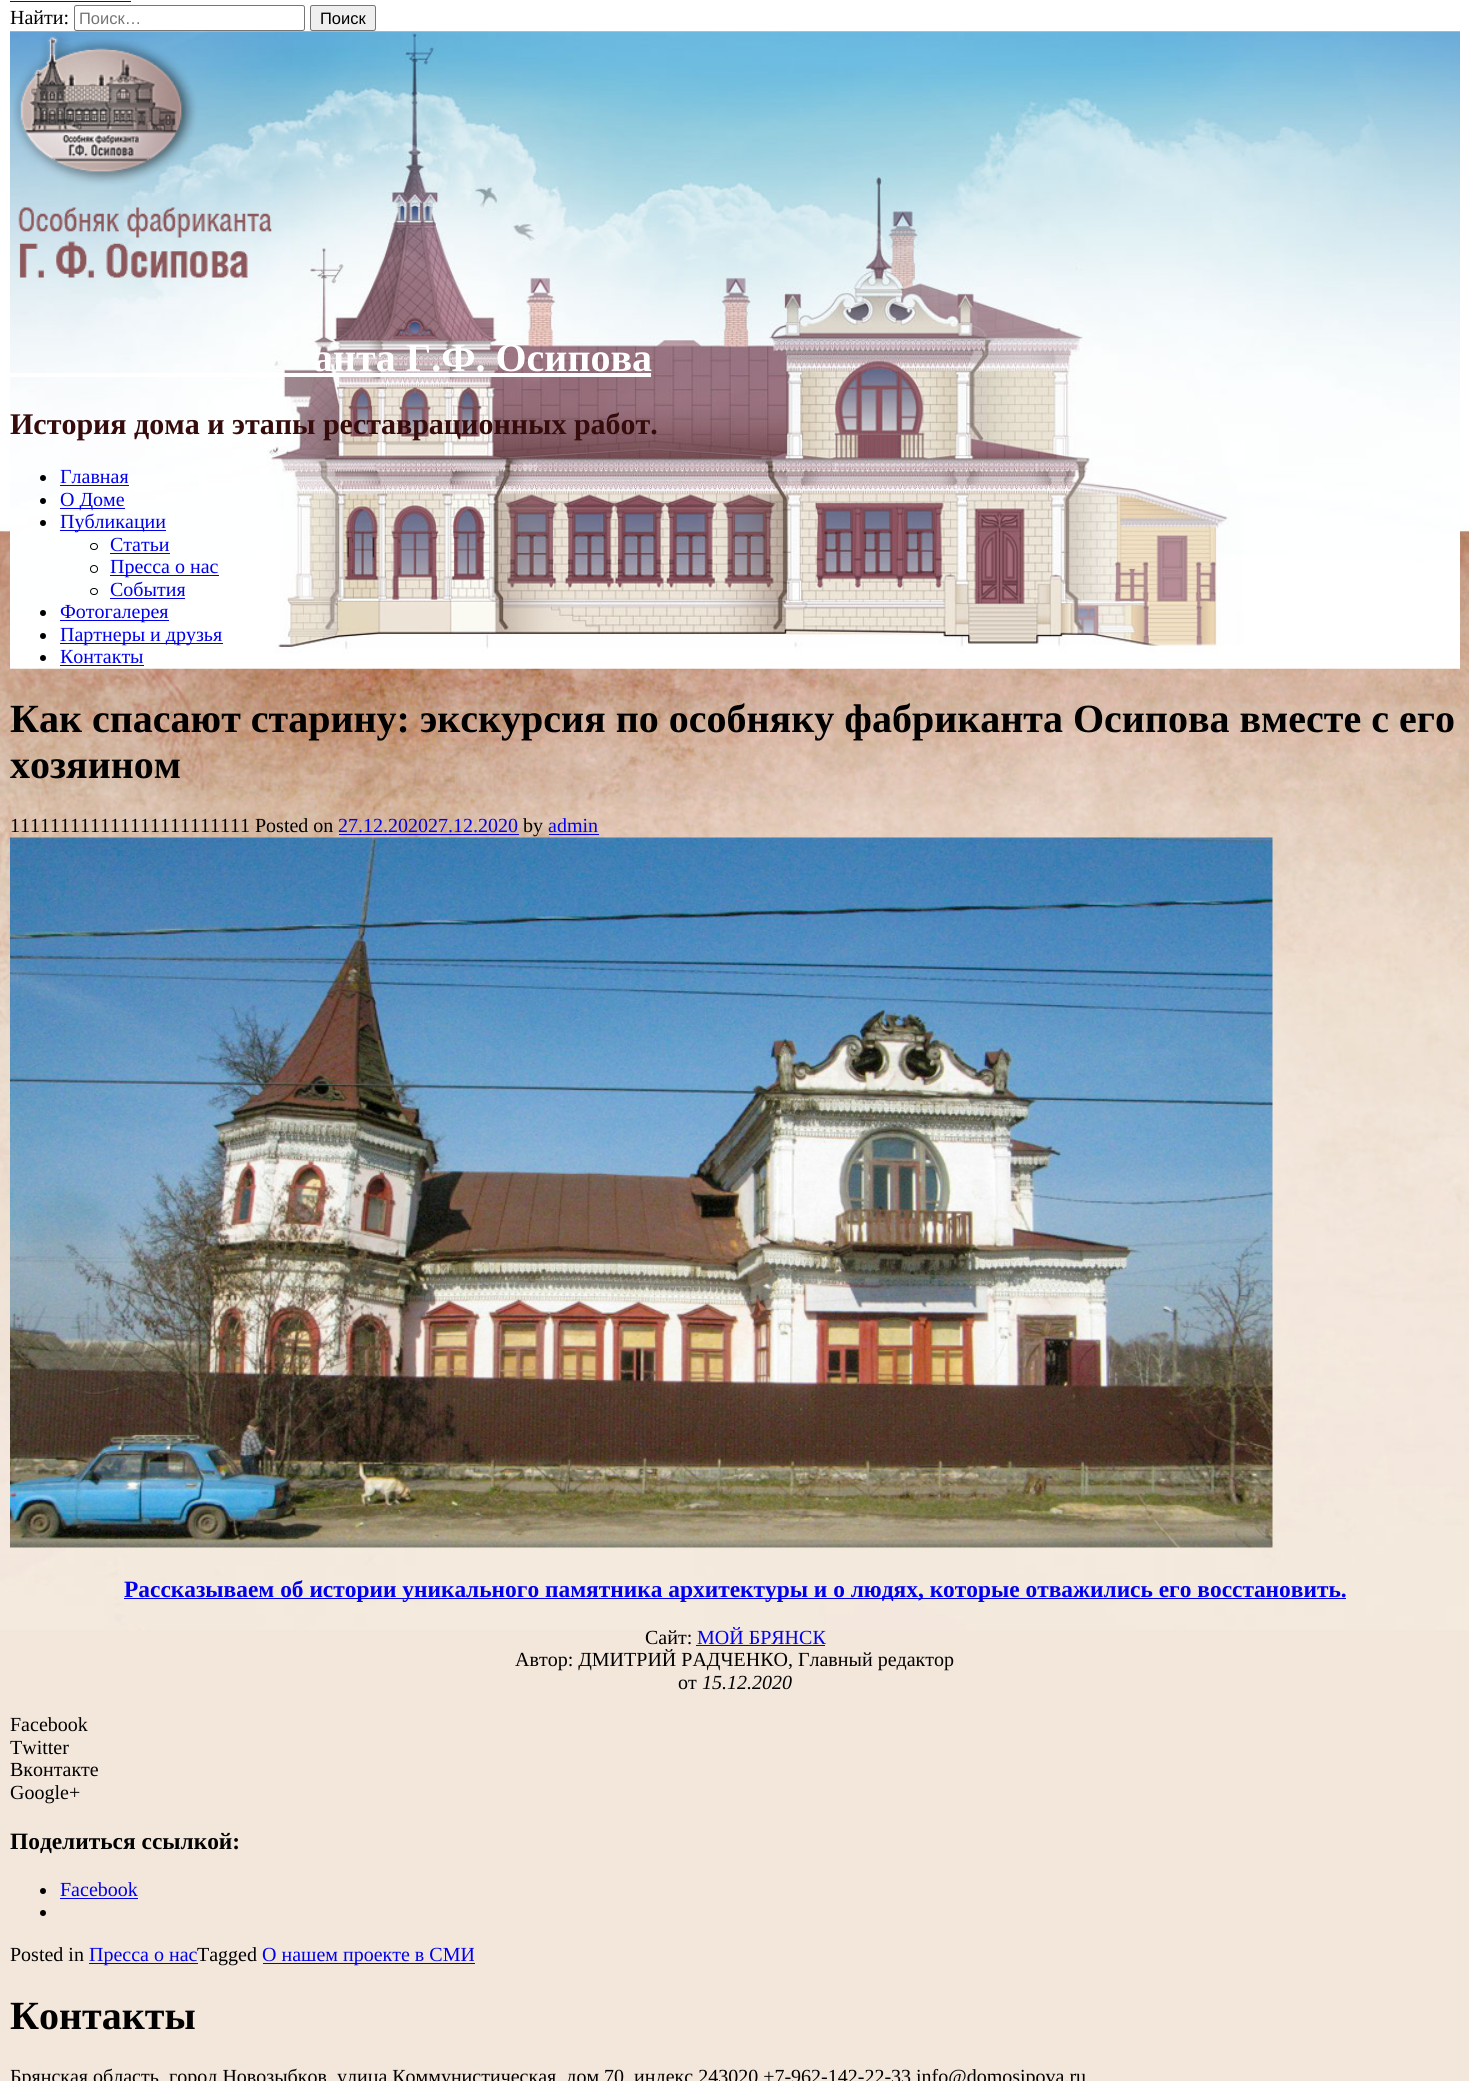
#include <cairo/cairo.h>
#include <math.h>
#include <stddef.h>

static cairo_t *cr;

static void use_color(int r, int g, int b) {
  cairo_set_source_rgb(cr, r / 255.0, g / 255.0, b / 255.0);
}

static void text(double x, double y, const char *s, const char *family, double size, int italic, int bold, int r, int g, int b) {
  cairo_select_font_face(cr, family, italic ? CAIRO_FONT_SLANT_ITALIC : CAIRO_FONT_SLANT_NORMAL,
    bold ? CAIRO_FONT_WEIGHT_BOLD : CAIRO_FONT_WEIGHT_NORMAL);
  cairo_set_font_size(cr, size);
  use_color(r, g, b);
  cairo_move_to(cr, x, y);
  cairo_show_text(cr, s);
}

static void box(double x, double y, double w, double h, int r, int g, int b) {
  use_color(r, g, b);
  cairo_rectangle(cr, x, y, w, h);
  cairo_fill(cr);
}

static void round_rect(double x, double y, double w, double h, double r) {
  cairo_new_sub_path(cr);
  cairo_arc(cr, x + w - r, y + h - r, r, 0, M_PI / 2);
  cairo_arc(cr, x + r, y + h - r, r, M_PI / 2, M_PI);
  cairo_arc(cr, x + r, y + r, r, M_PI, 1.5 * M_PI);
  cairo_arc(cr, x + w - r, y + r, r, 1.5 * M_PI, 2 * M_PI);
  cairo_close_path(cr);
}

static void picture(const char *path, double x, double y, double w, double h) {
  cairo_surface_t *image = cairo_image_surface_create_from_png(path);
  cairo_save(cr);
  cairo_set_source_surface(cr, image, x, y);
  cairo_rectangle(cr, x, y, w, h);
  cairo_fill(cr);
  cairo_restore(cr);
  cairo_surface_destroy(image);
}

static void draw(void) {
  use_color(243, 230, 219);
  cairo_paint(cr);
  picture("img_01.png", 0, 0, 1469, 1630);
  box(10, 1, 121, 1, 0, 0, 238);
  round_rect(74.5, 5.5, 230, 25, 2);
  use_color(118, 118, 118);
  cairo_set_line_width(cr, 1);
  cairo_stroke(cr);
  use_color(239, 239, 239);
  round_rect(310.5, 5.5, 65, 25, 2);
  cairo_fill_preserve(cr);
  use_color(118, 118, 118);
  cairo_stroke(cr);
  picture("img_02.png", 10, 31, 1450, 638);
  picture("img_03.png", 13, 32, 259, 246);
  box(10, 373, 641, 4, 255, 255, 255);
  use_color(0, 0, 0);
  cairo_arc(cr, 43, 478, 3, 0, 2 * M_PI);
  cairo_fill(cr);
  box(60, 485, 69, 1, 0, 0, 238);
  use_color(0, 0, 0);
  cairo_arc(cr, 43, 501, 3, 0, 2 * M_PI);
  cairo_fill(cr);
  box(60, 508, 65, 1, 0, 0, 238);
  use_color(0, 0, 0);
  cairo_arc(cr, 43, 523, 3, 0, 2 * M_PI);
  cairo_fill(cr);
  box(60, 530, 106, 1, 0, 0, 238);
  round_rect(90.5, 543.5, 7, 6, 3);
  use_color(0, 0, 0);
  cairo_stroke(cr);
  box(110, 553, 60, 1, 0, 0, 238);
  cairo_arc(cr, 94, 569, 3.5, 0, 2 * M_PI);
  use_color(0, 0, 0);
  cairo_stroke(cr);
  box(110, 575, 109, 1, 0, 0, 238);
  round_rect(90.5, 588.5, 7, 6, 3);
  use_color(0, 0, 0);
  cairo_stroke(cr);
  box(110, 598, 75, 1, 0, 0, 238);
  use_color(0, 0, 0);
  cairo_arc(cr, 43, 613, 3, 0, 2 * M_PI);
  cairo_fill(cr);
  box(60, 620, 109, 1, 0, 0, 238);
  use_color(0, 0, 0);
  cairo_arc(cr, 43, 636, 3, 0, 2 * M_PI);
  cairo_fill(cr);
  box(60, 643, 163, 1, 0, 0, 238);
  use_color(0, 0, 0);
  cairo_arc(cr, 43, 658, 3, 0, 2 * M_PI);
  cairo_fill(cr);
  box(60, 665, 84, 1, 0, 0, 238);
  box(339, 834, 180, 1, 0, 0, 238);
  box(549, 834, 50, 1, 0, 0, 238);
  picture("img_04.png", 10, 837, 1263, 711);
  box(124, 1598, 1222, 1, 0, 0, 238);
  box(696, 1645, 129, 1, 0, 0, 238);
  use_color(0, 0, 0);
  cairo_arc(cr, 43, 1891, 3, 0, 2 * M_PI);
  cairo_fill(cr);
  box(60, 1898, 78, 1, 0, 0, 238);
  use_color(0, 0, 0);
  cairo_arc(cr, 43, 1913, 3, 0, 2 * M_PI);
  cairo_fill(cr);
  box(89, 1963, 109, 1, 0, 0, 238);
  box(263, 1963, 212, 1, 0, 0, 238);
  text(10, 24, "Найти:", "Liberation Serif", 20, 0, 0, 0, 0, 0);
  text(79, 24, "Поиск…", "Liberation Sans", 16.5, 0, 0, 117, 117, 117);
  text(320, 24, "Поиск", "Liberation Sans", 16.5, 0, 0, 0, 0, 0);
  text(313, 371, "анта Г.Ф. Осипова", "Liberation Serif", 40, 0, 1, 255, 255, 255);
  text(10, 434, "История дома и этапы реставрационных работ.", "Liberation Serif", 30, 0, 1, 53, 11, 11);
  text(60, 483, "Главная", "Liberation Serif", 20, 0, 0, 0, 0, 238);
  text(60, 506, "О Доме", "Liberation Serif", 20, 0, 0, 0, 0, 238);
  text(60, 528, "Публикации", "Liberation Serif", 20, 0, 0, 0, 0, 238);
  text(110, 551, "Статьи", "Liberation Serif", 20, 0, 0, 0, 0, 238);
  text(110, 573, "Пресса о нас", "Liberation Serif", 20, 0, 0, 0, 0, 238);
  text(110, 596, "События", "Liberation Serif", 20, 0, 0, 0, 0, 238);
  text(60, 618, "Фотогалерея", "Liberation Serif", 20, 0, 0, 0, 0, 238);
  text(60, 641, "Партнеры и друзья", "Liberation Serif", 20, 0, 0, 0, 0, 238);
  text(60, 663, "Контакты", "Liberation Serif", 20, 0, 0, 0, 0, 238);
  text(10, 732, "Как спасают старину: экскурсия по особняку фабриканта Осипова вместе с его", "Liberation Serif", 40, 0, 1, 0, 0, 0);
  text(10, 778, "хозяином", "Liberation Serif", 40, 0, 1, 0, 0, 0);
  text(10, 832, "111111111111111111111111 Posted on", "Liberation Serif", 20, 0, 0, 0, 0, 0);
  text(338, 832, "27.12.202027.12.2020", "Liberation Serif", 20, 0, 0, 0, 0, 238);
  text(523, 832, "by", "Liberation Serif", 20, 0, 0, 0, 0, 0);
  text(548, 832, "admin", "Liberation Serif", 20, 0, 0, 0, 0, 238);
  text(124, 1597, "Рассказываем об истории уникального памятника архитектуры и о людях, которые отважились его восстановить.", "Liberation Serif", 23.4, 0, 1, 0, 0, 238);
  text(645, 1644, "Сайт:", "Liberation Serif", 20, 0, 0, 0, 0, 0);
  text(697, 1644, "МОЙ БРЯНСК", "Liberation Serif", 20, 0, 0, 0, 0, 238);
  text(515, 1666, "Автор: ДМИТРИЙ РАДЧЕНКО, Главный редактор", "Liberation Serif", 20, 0, 0, 0, 0, 0);
  text(678, 1689, "от", "Liberation Serif", 20, 0, 0, 0, 0, 0);
  text(702, 1689, "15.12.2020", "Liberation Serif", 20, 1, 0, 0, 0, 0);
  text(10, 1731, "Facebook", "Liberation Serif", 20, 0, 0, 0, 0, 0);
  text(10, 1754, "Twitter", "Liberation Serif", 20, 0, 0, 0, 0, 0);
  text(10, 1776, "Вконтакте", "Liberation Serif", 20, 0, 0, 0, 0, 0);
  text(10, 1799, "Google+", "Liberation Serif", 20, 0, 0, 0, 0, 0);
  text(10, 1849, "Поделиться ссылкой:", "Liberation Serif", 23.4, 0, 1, 0, 0, 0);
  text(60, 1896, "Facebook", "Liberation Serif", 20, 0, 0, 0, 0, 238);
  text(10, 1961, "Posted in", "Liberation Serif", 20, 0, 0, 0, 0, 0);
  text(89, 1961, "Пресса о нас", "Liberation Serif", 20, 0, 0, 0, 0, 238);
  text(197, 1961, "Tagged", "Liberation Serif", 20, 0, 0, 0, 0, 0);
  text(262, 1961, "О нашем проекте в СМИ", "Liberation Serif", 20, 0, 0, 0, 0, 238);
  text(10, 2029, "Контакты", "Liberation Serif", 40, 0, 1, 0, 0, 0);
  text(10, 2083, "Брянская область", "Liberation Serif", 20, 0, 0, 0, 0, 0);
  text(169, 2083, "город Новозыбков", "Liberation Serif", 20, 0, 0, 0, 0, 0);
  text(337, 2083, "улица Коммунистическая, дом 70. индекс 243020 +7-962-142-22-33 info@domosipova.ru", "Liberation Serif", 20, 0, 0, 0, 0, 0);
}

int main(void) {
  cairo_surface_t *surface = cairo_image_surface_create(CAIRO_FORMAT_RGB24, 1469, 2081);
  cr = cairo_create(surface);
  cairo_font_options_t *options = cairo_font_options_create();
  cairo_font_options_set_hint_metrics(options, CAIRO_HINT_METRICS_OFF);
  cairo_font_options_set_hint_style(options, CAIRO_HINT_STYLE_NONE);
  cairo_set_font_options(cr, options);
  cairo_set_miter_limit(cr, 4);
  draw();
  cairo_surface_write_to_png(surface, "out.png");
  cairo_font_options_destroy(options);
  cairo_destroy(cr);
  cairo_surface_destroy(surface);
  return 0;
}
